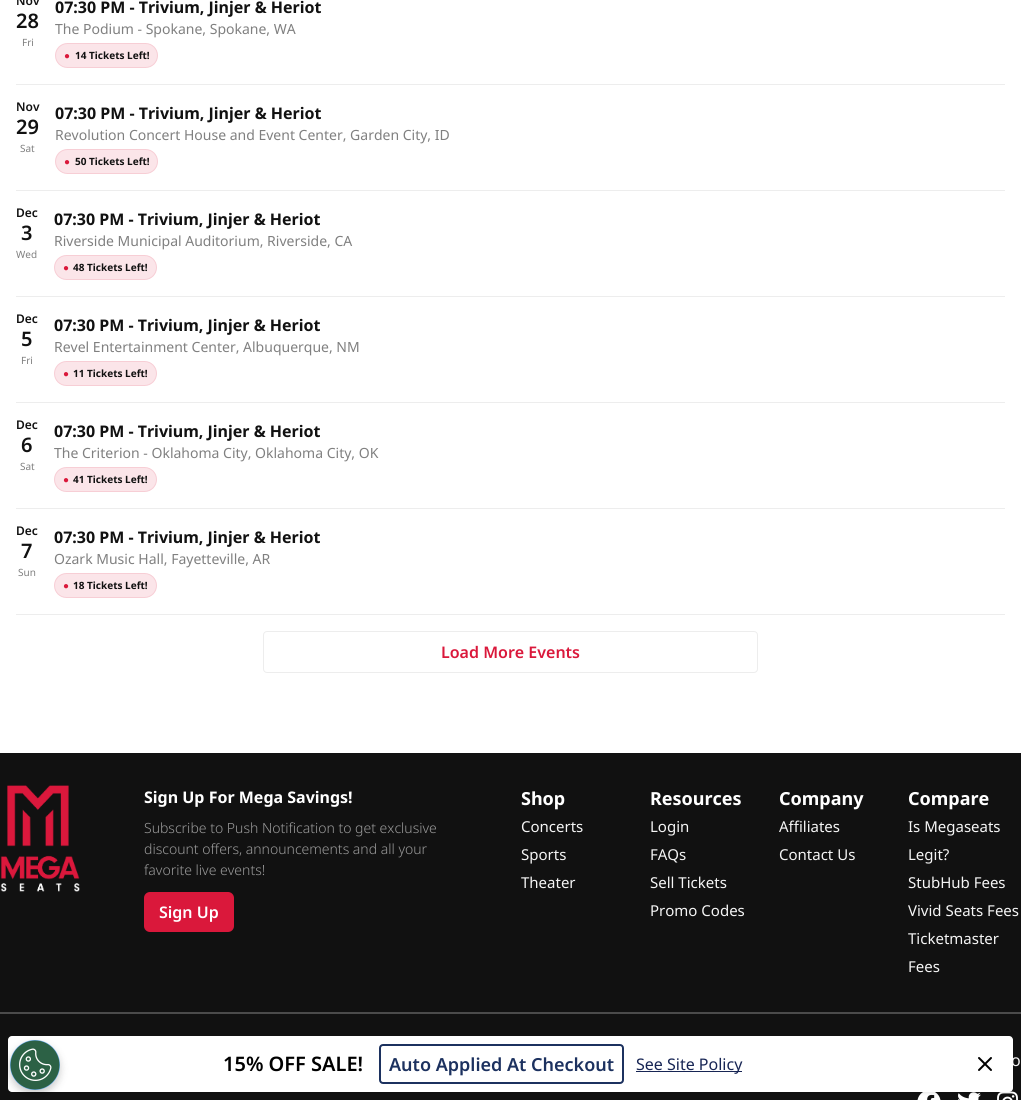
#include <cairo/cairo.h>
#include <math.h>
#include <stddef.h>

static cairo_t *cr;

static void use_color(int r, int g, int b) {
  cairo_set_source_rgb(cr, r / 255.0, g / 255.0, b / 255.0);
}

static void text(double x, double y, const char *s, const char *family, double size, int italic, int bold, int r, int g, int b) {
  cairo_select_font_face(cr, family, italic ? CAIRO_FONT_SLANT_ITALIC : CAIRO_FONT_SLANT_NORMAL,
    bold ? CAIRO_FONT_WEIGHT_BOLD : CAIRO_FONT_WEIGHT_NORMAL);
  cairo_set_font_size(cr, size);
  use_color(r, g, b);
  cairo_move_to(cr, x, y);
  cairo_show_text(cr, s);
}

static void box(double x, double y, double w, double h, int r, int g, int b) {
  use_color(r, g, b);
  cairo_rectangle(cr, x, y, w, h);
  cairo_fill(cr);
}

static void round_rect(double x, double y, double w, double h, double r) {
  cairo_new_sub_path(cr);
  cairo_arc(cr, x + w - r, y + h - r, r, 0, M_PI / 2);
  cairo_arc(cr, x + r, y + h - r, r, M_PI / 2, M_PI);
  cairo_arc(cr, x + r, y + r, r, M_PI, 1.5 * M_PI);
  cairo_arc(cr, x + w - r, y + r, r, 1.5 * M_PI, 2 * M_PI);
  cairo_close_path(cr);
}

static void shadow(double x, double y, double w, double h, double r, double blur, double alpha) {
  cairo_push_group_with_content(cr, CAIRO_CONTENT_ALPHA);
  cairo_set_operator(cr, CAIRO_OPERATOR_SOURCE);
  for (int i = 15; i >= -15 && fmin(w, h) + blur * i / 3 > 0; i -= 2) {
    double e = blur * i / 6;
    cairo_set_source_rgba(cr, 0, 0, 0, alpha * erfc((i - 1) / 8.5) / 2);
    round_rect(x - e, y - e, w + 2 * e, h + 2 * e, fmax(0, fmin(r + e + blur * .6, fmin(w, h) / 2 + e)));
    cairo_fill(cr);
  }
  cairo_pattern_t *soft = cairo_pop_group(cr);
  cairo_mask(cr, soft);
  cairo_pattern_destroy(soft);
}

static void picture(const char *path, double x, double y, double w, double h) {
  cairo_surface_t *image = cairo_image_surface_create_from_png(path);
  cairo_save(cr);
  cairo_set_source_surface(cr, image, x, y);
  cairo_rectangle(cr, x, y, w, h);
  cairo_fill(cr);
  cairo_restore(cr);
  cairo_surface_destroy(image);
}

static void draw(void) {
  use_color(255, 255, 255);
  cairo_paint(cr);
  box(16, 84, 989, 1, 237, 237, 237);
  use_color(251, 229, 233);
  round_rect(55, 43, 103, 25, 12.5);
  cairo_fill(cr);
  round_rect(55.5, 43.5, 102, 24, 12);
  cairo_set_source_rgba(cr, 0.855, 0.094, 0.231, 0.11);
  cairo_set_line_width(cr, 1);
  cairo_stroke(cr);
  box(16, 190, 989, 1, 237, 237, 237);
  use_color(251, 229, 233);
  round_rect(55, 149, 103, 25, 12.5);
  cairo_fill(cr);
  round_rect(55.5, 149.5, 102, 24, 12);
  cairo_set_source_rgba(cr, 0.855, 0.094, 0.231, 0.11);
  cairo_stroke(cr);
  box(16, 296, 989, 1, 237, 237, 237);
  use_color(251, 229, 233);
  round_rect(54, 255, 103, 25, 12.5);
  cairo_fill(cr);
  round_rect(54.5, 255.5, 102, 24, 12);
  cairo_set_source_rgba(cr, 0.855, 0.094, 0.231, 0.11);
  cairo_stroke(cr);
  box(16, 402, 989, 1, 237, 237, 237);
  use_color(251, 229, 233);
  round_rect(54, 361, 103, 25, 12.5);
  cairo_fill(cr);
  round_rect(54.5, 361.5, 102, 24, 12);
  cairo_set_source_rgba(cr, 0.855, 0.094, 0.231, 0.11);
  cairo_stroke(cr);
  box(16, 508, 989, 1, 237, 237, 237);
  use_color(251, 229, 233);
  round_rect(54, 467, 103, 25, 12.5);
  cairo_fill(cr);
  round_rect(54.5, 467.5, 102, 24, 12);
  cairo_set_source_rgba(cr, 0.855, 0.094, 0.231, 0.11);
  cairo_stroke(cr);
  box(16, 614, 989, 1, 237, 237, 237);
  use_color(251, 229, 233);
  round_rect(54, 573, 103, 25, 12.5);
  cairo_fill(cr);
  round_rect(54.5, 573.5, 102, 24, 12);
  cairo_set_source_rgba(cr, 0.855, 0.094, 0.231, 0.11);
  cairo_stroke(cr);
  round_rect(263.5, 631.5, 494, 41, 3.5);
  use_color(237, 237, 237);
  cairo_stroke(cr);
  box(0, 753, 1021, 347, 17, 17, 17);
  box(0, 1012, 1021, 2, 75, 75, 75);
  picture("img_01.png", 0, 785, 80, 107);
  use_color(218, 24, 59);
  round_rect(144, 892, 90, 40, 6);
  cairo_fill(cr);
  picture("img_02.png", 917, 1092, 24, 8);
  picture("img_03.png", 958, 1092, 23, 8);
  picture("img_04.png", 997, 1091, 21, 9);
  use_color(0, 0, 0);
  shadow(8, 1037, 1005, 56, 4, 1.5, 0.1);
  text(16, 5, "Nov", "Noto Sans SemiBold", 12, 0, 0, 17, 17, 17);
  text(16, 28, "28", "Noto Sans SemiBold", 20, 0, 0, 17, 17, 17);
  text(22, 46, "Fri", "Noto Sans", 10, 0, 0, 128, 128, 128);
  text(55, 13, "07:30 PM - Trivium, Jinjer & Heriot", "Noto Sans", 16, 0, 1, 17, 17, 17);
  text(55, 34, "The Podium - Spokane, Spokane, WA", "Noto Sans", 14, 0, 0, 128, 128, 128);
  text(64, 59, "●", "Liberation Sans", 10, 0, 1, 218, 24, 59);
  text(75, 59, "14 Tickets Left!", "Noto Sans", 10, 0, 1, 17, 17, 17);
  text(16, 111, "Nov", "Noto Sans SemiBold", 12, 0, 0, 17, 17, 17);
  text(16, 134, "29", "Noto Sans SemiBold", 20, 0, 0, 17, 17, 17);
  text(20, 152, "Sat", "Noto Sans", 10, 0, 0, 128, 128, 128);
  text(55, 119, "07:30 PM - Trivium, Jinjer & Heriot", "Noto Sans", 16, 0, 1, 17, 17, 17);
  text(55, 140, "Revolution Concert House and Event Center, Garden City, ID", "Noto Sans", 14, 0, 0, 128, 128, 128);
  text(64, 165, "●", "Liberation Sans", 10, 0, 1, 218, 24, 59);
  text(75, 165, "50 Tickets Left!", "Noto Sans", 10, 0, 1, 17, 17, 17);
  text(16, 217, "Dec", "Noto Sans SemiBold", 12, 0, 0, 17, 17, 17);
  text(21, 240, "3", "Noto Sans SemiBold", 20, 0, 0, 17, 17, 17);
  text(16, 258, "Wed", "Noto Sans", 10, 0, 0, 128, 128, 128);
  text(54, 225, "07:30 PM - Trivium, Jinjer & Heriot", "Noto Sans", 16, 0, 1, 17, 17, 17);
  text(54, 246, "Riverside Municipal Auditorium, Riverside, CA", "Noto Sans", 14, 0, 0, 128, 128, 128);
  text(63, 271, "●", "Liberation Sans", 10, 0, 1, 218, 24, 59);
  text(73, 271, "48 Tickets Left!", "Noto Sans", 10, 0, 1, 17, 17, 17);
  text(16, 323, "Dec", "Noto Sans SemiBold", 12, 0, 0, 17, 17, 17);
  text(21, 346, "5", "Noto Sans SemiBold", 20, 0, 0, 17, 17, 17);
  text(21, 364, "Fri", "Noto Sans", 10, 0, 0, 128, 128, 128);
  text(54, 331, "07:30 PM - Trivium, Jinjer & Heriot", "Noto Sans", 16, 0, 1, 17, 17, 17);
  text(54, 352, "Revel Entertainment Center, Albuquerque, NM", "Noto Sans", 14, 0, 0, 128, 128, 128);
  text(63, 377, "●", "Liberation Sans", 10, 0, 1, 218, 24, 59);
  text(73, 377, "11 Tickets Left!", "Noto Sans", 10, 0, 1, 17, 17, 17);
  text(16, 429, "Dec", "Noto Sans SemiBold", 12, 0, 0, 17, 17, 17);
  text(21, 452, "6", "Noto Sans SemiBold", 20, 0, 0, 17, 17, 17);
  text(20, 470, "Sat", "Noto Sans", 10, 0, 0, 128, 128, 128);
  text(54, 437, "07:30 PM - Trivium, Jinjer & Heriot", "Noto Sans", 16, 0, 1, 17, 17, 17);
  text(54, 458, "The Criterion - Oklahoma City, Oklahoma City, OK", "Noto Sans", 14, 0, 0, 128, 128, 128);
  text(63, 483, "●", "Liberation Sans", 10, 0, 1, 218, 24, 59);
  text(73, 483, "41 Tickets Left!", "Noto Sans", 10, 0, 1, 17, 17, 17);
  text(16, 535, "Dec", "Noto Sans SemiBold", 12, 0, 0, 17, 17, 17);
  text(21, 558, "7", "Noto Sans SemiBold", 20, 0, 0, 17, 17, 17);
  text(18, 576, "Sun", "Noto Sans", 10, 0, 0, 128, 128, 128);
  text(54, 543, "07:30 PM - Trivium, Jinjer & Heriot", "Noto Sans", 16, 0, 1, 17, 17, 17);
  text(54, 564, "Ozark Music Hall, Fayetteville, AR", "Noto Sans", 14, 0, 0, 128, 128, 128);
  text(63, 589, "●", "Liberation Sans", 10, 0, 1, 218, 24, 59);
  text(73, 589, "18 Tickets Left!", "Noto Sans", 10, 0, 1, 17, 17, 17);
  text(441, 658, "Load More Events", "Noto Sans SemiBold", 16, 0, 0, 218, 24, 59);
  text(144, 803, "Sign Up For Mega Savings!", "Noto Sans", 16, 0, 1, 255, 255, 255);
  text(144, 833, "Subscribe to Push Notification to get exclusive", "Noto Sans Light", 14, 0, 0, 155, 155, 155);
  text(144, 854, "discount offers, announcements and all your", "Noto Sans Light", 14, 0, 0, 155, 155, 155);
  text(144, 875, "favorite live events!", "Noto Sans Light", 14, 0, 0, 155, 155, 155);
  text(159, 918, "Sign Up", "Noto Sans SemiBold", 16, 0, 0, 255, 255, 255);
  text(521, 805, "Shop", "Noto Sans", 18, 0, 1, 255, 255, 255);
  text(521, 832, "Concerts", "Noto Sans", 15, 0, 0, 245, 245, 245);
  text(521, 860, "Sports", "Noto Sans", 15, 0, 0, 245, 245, 245);
  text(521, 888, "Theater", "Noto Sans", 15, 0, 0, 245, 245, 245);
  text(650, 805, "Resources", "Noto Sans", 18, 0, 1, 255, 255, 255);
  text(650, 832, "Login", "Noto Sans", 15, 0, 0, 245, 245, 245);
  text(650, 860, "FAQs", "Noto Sans", 15, 0, 0, 245, 245, 245);
  text(650, 888, "Sell Tickets", "Noto Sans", 15, 0, 0, 245, 245, 245);
  text(650, 916, "Promo Codes", "Noto Sans", 15, 0, 0, 245, 245, 245);
  text(779, 805, "Company", "Noto Sans", 18, 0, 1, 255, 255, 255);
  text(779, 832, "Affiliates", "Noto Sans", 15, 0, 0, 245, 245, 245);
  text(779, 860, "Contact Us", "Noto Sans", 15, 0, 0, 245, 245, 245);
  text(908, 805, "Compare", "Noto Sans", 18, 0, 1, 255, 255, 255);
  text(908, 832, "Is Megaseats", "Noto Sans", 15, 0, 0, 245, 245, 245);
  text(908, 860, "Legit?", "Noto Sans", 15, 0, 0, 245, 245, 245);
  text(908, 888, "StubHub Fees", "Noto Sans", 15, 0, 0, 245, 245, 245);
  text(908, 916, "Vivid Seats Fees", "Noto Sans", 15, 0, 0, 245, 245, 245);
  text(908, 944, "Ticketmaster", "Noto Sans", 15, 0, 0, 245, 245, 245);
  text(908, 972, "Fees", "Noto Sans", 15, 0, 0, 245, 245, 245);
  text(1011, 1066, "o", "Noto Sans", 16, 0, 0, 245, 245, 245);
  use_color(255, 255, 255);
  round_rect(8, 1036, 1005, 56, 4);
  cairo_fill(cr);
  text(223, 1071, "15% OFF SALE!", "Noto Sans SemiBold", 20, 0, 0, 0, 0, 0);
  round_rect(380, 1045, 243, 38, 3);
  use_color(28, 49, 95);
  cairo_set_line_width(cr, 2);
  cairo_stroke(cr);
  text(389, 1071, "Auto Applied At Checkout", "Noto Sans SemiBold", 18, 0, 0, 28, 49, 95);
  box(636, 1071, 106, 1, 23, 37, 84);
  text(636, 1070, "See Site Policy", "Noto Sans", 16, 0, 0, 23, 37, 84);
  cairo_new_path(cr);
  cairo_move_to(cr, 979, 1070);
  cairo_line_to(cr, 991, 1058);
  cairo_move_to(cr, 979, 1058);
  cairo_line_to(cr, 991, 1070);
  use_color(0, 0, 0);
  cairo_set_line_cap(cr, CAIRO_LINE_CAP_ROUND);
  cairo_set_line_join(cr, CAIRO_LINE_JOIN_ROUND);
  cairo_stroke(cr);
  use_color(0, 0, 0);
  shadow(10, 1044, 50, 50, 25, 4, 0.2);
  use_color(106, 170, 228);
  cairo_arc(cr, 35, 1065, 25, 0, 2 * M_PI);
  cairo_fill(cr);
  picture("img_05.png", 10, 1040, 50, 50);
}

int main(void) {
  cairo_surface_t *surface = cairo_image_surface_create(CAIRO_FORMAT_RGB24, 1021, 1100);
  cr = cairo_create(surface);
  cairo_font_options_t *options = cairo_font_options_create();
  cairo_font_options_set_hint_metrics(options, CAIRO_HINT_METRICS_OFF);
  cairo_font_options_set_hint_style(options, CAIRO_HINT_STYLE_NONE);
  cairo_set_font_options(cr, options);
  cairo_set_miter_limit(cr, 4);
  draw();
  cairo_surface_write_to_png(surface, "out.png");
  cairo_font_options_destroy(options);
  cairo_destroy(cr);
  cairo_surface_destroy(surface);
  return 0;
}
